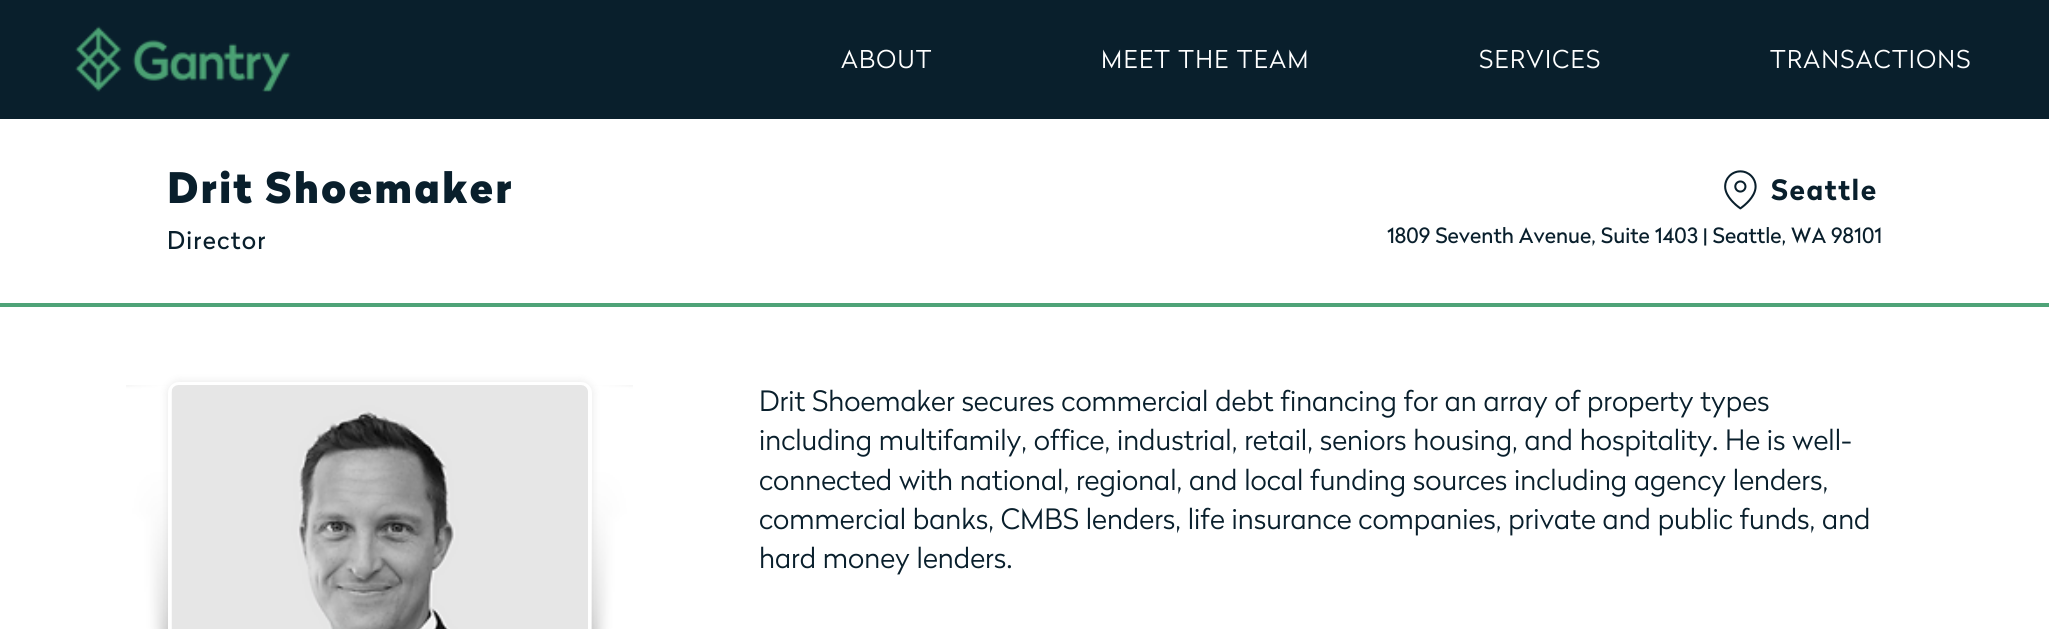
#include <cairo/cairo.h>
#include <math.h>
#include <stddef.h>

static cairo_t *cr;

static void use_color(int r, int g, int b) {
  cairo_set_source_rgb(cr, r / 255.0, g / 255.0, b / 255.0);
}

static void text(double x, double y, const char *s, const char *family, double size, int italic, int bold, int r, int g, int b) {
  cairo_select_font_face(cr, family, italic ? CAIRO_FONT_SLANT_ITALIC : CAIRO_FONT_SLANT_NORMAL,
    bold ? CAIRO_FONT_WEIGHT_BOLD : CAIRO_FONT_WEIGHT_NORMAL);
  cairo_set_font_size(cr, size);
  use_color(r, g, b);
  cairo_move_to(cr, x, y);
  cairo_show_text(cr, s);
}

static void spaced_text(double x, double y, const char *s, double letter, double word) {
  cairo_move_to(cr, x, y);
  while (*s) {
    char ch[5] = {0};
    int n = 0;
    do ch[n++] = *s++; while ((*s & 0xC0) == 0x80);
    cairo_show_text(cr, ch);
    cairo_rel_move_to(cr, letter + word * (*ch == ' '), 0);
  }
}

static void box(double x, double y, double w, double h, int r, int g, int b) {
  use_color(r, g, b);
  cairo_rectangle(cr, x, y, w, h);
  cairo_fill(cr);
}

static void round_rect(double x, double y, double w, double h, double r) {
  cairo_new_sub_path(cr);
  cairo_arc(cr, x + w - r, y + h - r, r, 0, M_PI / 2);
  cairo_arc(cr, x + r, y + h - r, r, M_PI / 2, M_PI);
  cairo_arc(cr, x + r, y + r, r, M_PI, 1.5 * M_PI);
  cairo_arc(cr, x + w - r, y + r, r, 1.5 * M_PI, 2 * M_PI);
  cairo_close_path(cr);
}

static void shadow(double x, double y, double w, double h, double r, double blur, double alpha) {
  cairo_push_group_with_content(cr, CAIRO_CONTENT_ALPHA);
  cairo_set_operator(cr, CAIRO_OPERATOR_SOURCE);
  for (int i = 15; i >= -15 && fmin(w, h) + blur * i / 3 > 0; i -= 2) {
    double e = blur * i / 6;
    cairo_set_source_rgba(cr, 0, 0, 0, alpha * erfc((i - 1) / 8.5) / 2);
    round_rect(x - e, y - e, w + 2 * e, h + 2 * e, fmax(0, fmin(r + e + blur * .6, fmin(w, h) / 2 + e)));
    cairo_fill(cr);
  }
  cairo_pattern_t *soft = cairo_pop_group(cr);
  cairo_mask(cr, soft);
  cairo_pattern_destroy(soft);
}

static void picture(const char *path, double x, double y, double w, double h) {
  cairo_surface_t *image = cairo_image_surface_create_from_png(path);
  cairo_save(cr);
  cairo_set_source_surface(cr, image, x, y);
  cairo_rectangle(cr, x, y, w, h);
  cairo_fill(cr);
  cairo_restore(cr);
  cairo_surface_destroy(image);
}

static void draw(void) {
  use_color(9, 31, 44);
  cairo_paint(cr);
  picture("img_01.png", 75, 26, 216, 66);
  box(0, 119, 2049, 510, 255, 255, 255);
  use_color(0, 0, 0);
  shadow(168, 382, 424, 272, 11, 4.5, 0.1);
  picture("img_02.png", 126, 385, 42, 244);
  round_rect(170, 384, 420, 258, 9);
  use_color(255, 255, 255);
  cairo_set_line_width(cr, 4);
  cairo_stroke(cr);
  picture("img_03.png", 171, 385, 417, 244);
  picture("img_04.png", 591, 385, 42, 244);
  picture("img_05.png", 1724, 170, 33, 40);
  box(0, 303, 2049, 4, 78, 163, 119);
  cairo_select_font_face(cr, "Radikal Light", CAIRO_FONT_SLANT_NORMAL, CAIRO_FONT_WEIGHT_NORMAL);
  cairo_set_font_size(cr, 24.5);
  use_color(255, 255, 255);
  spaced_text(841, 68, "ABOUT", 1.25, 0);
  spaced_text(1101, 68, "MEET THE TEAM", 1.25, 0);
  spaced_text(1479, 68, "SERVICES", 1.25, 0);
  spaced_text(1770, 68, "TRANSACTIONS", 1.25, 0);
  cairo_select_font_face(cr, "Radikal Black", CAIRO_FONT_SLANT_NORMAL, CAIRO_FONT_WEIGHT_NORMAL);
  cairo_set_font_size(cr, 42);
  use_color(9, 31, 44);
  spaced_text(167, 203, "Drit Shoemaker", 2.1, 0);
  cairo_select_font_face(cr, "Radikal", CAIRO_FONT_SLANT_NORMAL, CAIRO_FONT_WEIGHT_NORMAL);
  cairo_set_font_size(cr, 24.5);
  spaced_text(167, 249, "Director", 1.25, 0);
  cairo_select_font_face(cr, "Radikal", CAIRO_FONT_SLANT_NORMAL, CAIRO_FONT_WEIGHT_BOLD);
  cairo_set_font_size(cr, 28);
  spaced_text(1771, 200, "Seattle", 1.5, 0);
  text(1387, 243, "1809 Seventh Avenue, Suite 1403 | Seattle, WA 98101", "Radikal", 21, 0, 0, 9, 31, 44);
  text(759, 411, "Drit Shoemaker secures commercial debt financing for an array of property types", "Radikal Light", 28, 0, 0, 9, 31, 44);
  text(759, 450, "including multifamily, office, industrial, retail, seniors housing, and hospitality. He is well-", "Radikal Light", 28, 0, 0, 9, 31, 44);
  text(759, 490, "connected with national, regional, and local funding sources including agency lenders,", "Radikal Light", 28, 0, 0, 9, 31, 44);
  text(759, 529, "commercial banks, CMBS lenders, life insurance companies, private and public funds, and", "Radikal Light", 28, 0, 0, 9, 31, 44);
  text(759, 568, "hard money lenders.", "Radikal Light", 28, 0, 0, 9, 31, 44);
}

int main(void) {
  cairo_surface_t *surface = cairo_image_surface_create(CAIRO_FORMAT_RGB24, 2049, 629);
  cr = cairo_create(surface);
  cairo_font_options_t *options = cairo_font_options_create();
  cairo_font_options_set_hint_metrics(options, CAIRO_HINT_METRICS_OFF);
  cairo_font_options_set_hint_style(options, CAIRO_HINT_STYLE_NONE);
  cairo_set_font_options(cr, options);
  cairo_set_miter_limit(cr, 4);
  draw();
  cairo_surface_write_to_png(surface, "out.png");
  cairo_font_options_destroy(options);
  cairo_destroy(cr);
  cairo_surface_destroy(surface);
  return 0;
}
